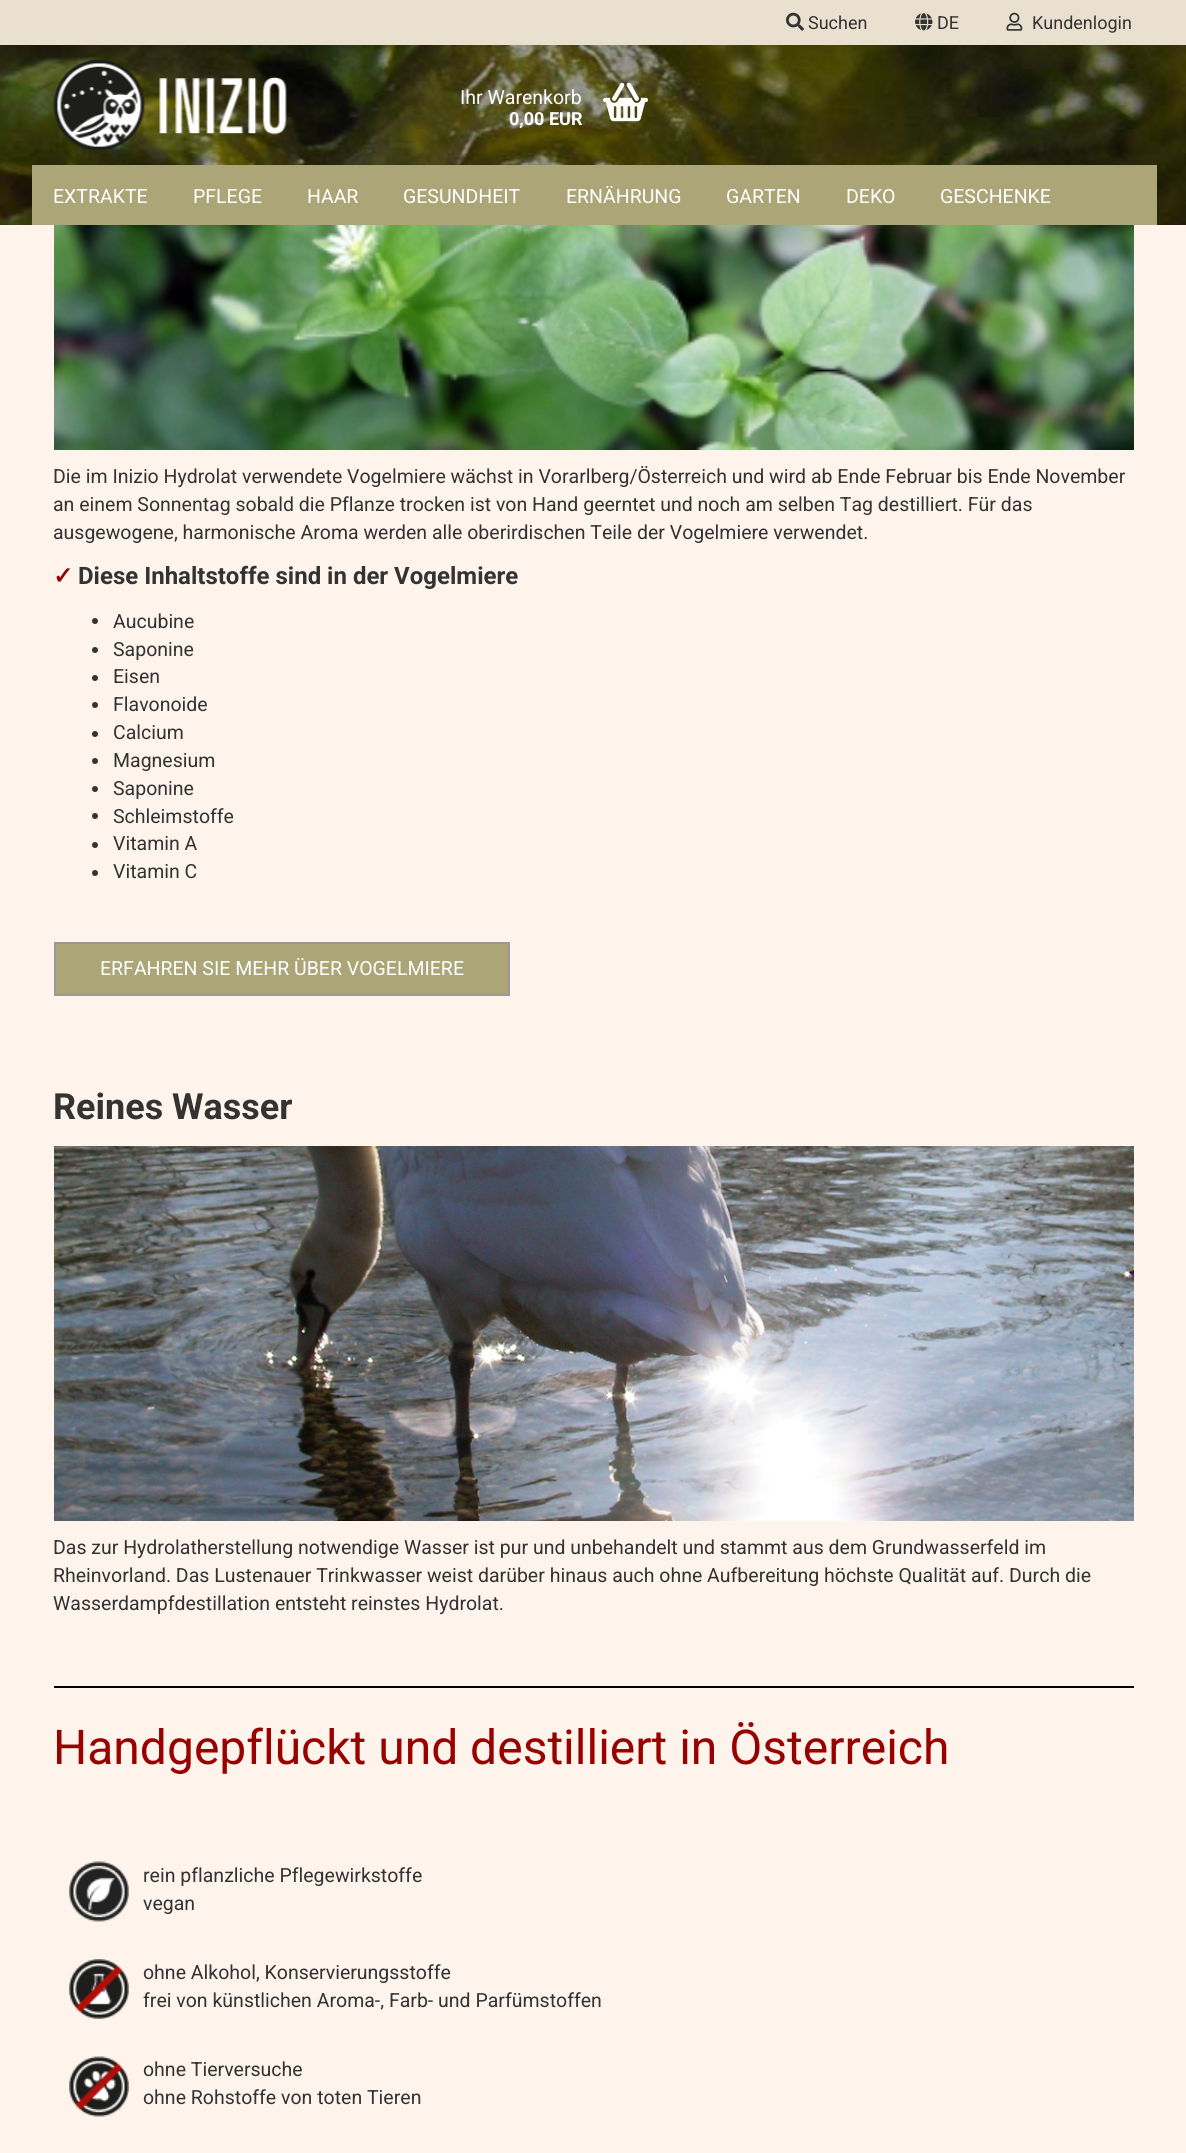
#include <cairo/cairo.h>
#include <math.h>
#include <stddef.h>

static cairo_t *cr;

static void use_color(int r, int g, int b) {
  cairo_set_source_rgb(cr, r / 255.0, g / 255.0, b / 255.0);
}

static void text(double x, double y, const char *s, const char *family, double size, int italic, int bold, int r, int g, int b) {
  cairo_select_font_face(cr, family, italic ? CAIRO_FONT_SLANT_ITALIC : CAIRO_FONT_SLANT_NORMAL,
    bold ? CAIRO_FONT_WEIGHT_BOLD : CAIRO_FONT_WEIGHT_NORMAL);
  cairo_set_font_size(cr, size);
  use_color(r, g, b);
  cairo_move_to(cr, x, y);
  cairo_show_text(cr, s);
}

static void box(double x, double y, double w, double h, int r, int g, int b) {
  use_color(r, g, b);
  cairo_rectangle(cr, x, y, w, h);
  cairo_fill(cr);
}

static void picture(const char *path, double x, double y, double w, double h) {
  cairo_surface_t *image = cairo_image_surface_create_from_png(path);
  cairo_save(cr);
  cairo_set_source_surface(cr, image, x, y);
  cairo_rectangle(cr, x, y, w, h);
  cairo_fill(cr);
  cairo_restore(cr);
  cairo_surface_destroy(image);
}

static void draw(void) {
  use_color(254, 244, 235);
  cairo_paint(cr);
  picture("img_01.png", 0, 45, 1186, 180);
  box(0, 0, 1186, 45, 234, 224, 207);
  picture("img_02.png", 786, 12, 18, 19);
  picture("img_03.png", 915, 13, 18, 18);
  picture("img_04.png", 1006, 12, 17, 19);
  picture("img_05.png", 53, 60, 234, 90);
  picture("img_06.png", 603, 82, 45, 40);
  box(32, 165, 1125, 60, 171, 165, 119);
  picture("img_07.png", 54, 225, 1080, 225);
  use_color(51, 51, 51);
  cairo_arc(cr, 95, 621, 3, 0, 2 * M_PI);
  cairo_fill(cr);
  cairo_arc(cr, 95, 650, 3, 0, 2 * M_PI);
  cairo_fill(cr);
  cairo_arc(cr, 95, 678, 3, 0, 2 * M_PI);
  cairo_fill(cr);
  cairo_arc(cr, 95, 705, 3, 0, 2 * M_PI);
  cairo_fill(cr);
  cairo_arc(cr, 95, 734, 3, 0, 2 * M_PI);
  cairo_fill(cr);
  cairo_arc(cr, 95, 761, 3, 0, 2 * M_PI);
  cairo_fill(cr);
  cairo_arc(cr, 95, 789, 3, 0, 2 * M_PI);
  cairo_fill(cr);
  cairo_arc(cr, 95, 816, 3, 0, 2 * M_PI);
  cairo_fill(cr);
  cairo_arc(cr, 95, 845, 3, 0, 2 * M_PI);
  cairo_fill(cr);
  cairo_arc(cr, 95, 873, 3, 0, 2 * M_PI);
  cairo_fill(cr);
  use_color(171, 165, 119);
  cairo_rectangle(cr, 55, 943, 454, 52);
  cairo_fill_preserve(cr);
  use_color(153, 153, 153);
  cairo_stroke(cr);
  picture("img_08.png", 54, 1146, 1080, 375);
  box(54, 1686, 1080, 2, 0, 0, 0);
  picture("img_09.png", 69, 1861, 60, 61);
  picture("img_10.png", 69, 1959, 60, 60);
  picture("img_11.png", 69, 2056, 60, 61);
  text(808, 29, "Suchen", "Roboto", 18, 0, 0, 51, 51, 51);
  text(937, 29, "DE", "Roboto", 18, 0, 0, 51, 51, 51);
  text(1032, 29, "Kundenlogin", "Roboto", 18, 0, 0, 51, 51, 51);
  text(460, 104, "Ihr Warenkorb", "Roboto", 19.5, 0, 0, 255, 255, 255);
  text(509, 125, "0,00 EUR", "Roboto", 18, 0, 1, 255, 255, 255);
  text(53, 203, "EXTRAKTE", "Roboto", 19.5, 0, 0, 255, 255, 255);
  text(193, 203, "PFLEGE", "Roboto", 19.5, 0, 0, 255, 255, 255);
  text(307, 203, "HAAR", "Roboto", 19.5, 0, 0, 255, 255, 255);
  text(403, 203, "GESUNDHEIT", "Roboto", 19.5, 0, 0, 255, 255, 255);
  text(566, 203, "ERNÄHRUNG", "Roboto", 19.5, 0, 0, 255, 255, 255);
  text(726, 203, "GARTEN", "Roboto", 19.5, 0, 0, 255, 255, 255);
  text(846, 203, "DEKO", "Roboto", 19.5, 0, 0, 255, 255, 255);
  text(940, 203, "GESCHENKE", "Roboto", 19.5, 0, 0, 255, 255, 255);
  text(53, 483, "Die im Inizio Hydrolat verwendete Vogelmiere wächst in Vorarlberg/Österreich und wird ab Ende Februar bis Ende November", "Roboto", 19.5, 0, 0, 51, 51, 51);
  text(53, 511, "an einem Sonnentag sobald die Pflanze trocken ist von Hand geerntet und noch am selben Tag destilliert. Für das", "Roboto", 19.5, 0, 0, 51, 51, 51);
  text(53, 539, "ausgewogene, harmonische Aroma werden alle oberirdischen Teile der Vogelmiere verwendet.", "Roboto", 19.5, 0, 0, 51, 51, 51);
  text(53, 584, "✓", "DejaVu Sans", 24, 0, 1, 153, 0, 0);
  text(78, 584, "Diese Inhaltstoffe sind in der Vogelmiere", "Roboto", 24, 0, 1, 51, 51, 51);
  text(113, 628, "Aucubine", "Roboto", 19.5, 0, 0, 51, 51, 51);
  text(113, 656, "Saponine", "Roboto", 19.5, 0, 0, 51, 51, 51);
  text(113, 683, "Eisen", "Roboto", 19.5, 0, 0, 51, 51, 51);
  text(113, 711, "Flavonoide", "Roboto", 19.5, 0, 0, 51, 51, 51);
  text(113, 739, "Calcium", "Roboto", 19.5, 0, 0, 51, 51, 51);
  text(113, 767, "Magnesium", "Roboto", 19.5, 0, 0, 51, 51, 51);
  text(113, 795, "Saponine", "Roboto", 19.5, 0, 0, 51, 51, 51);
  text(113, 823, "Schleimstoffe", "Roboto", 19.5, 0, 0, 51, 51, 51);
  text(113, 850, "Vitamin A", "Roboto", 19.5, 0, 0, 51, 51, 51);
  text(113, 878, "Vitamin C", "Roboto", 19.5, 0, 0, 51, 51, 51);
  text(100, 975, "ERFAHREN SIE MEHR ÜBER VOGELMIERE", "Roboto", 19.5, 0, 0, 255, 255, 255);
  text(53, 1119, "Reines Wasser", "Roboto", 36, 0, 1, 51, 51, 51);
  text(53, 1554, "Das zur Hydrolatherstellung notwendige Wasser ist pur und unbehandelt und stammt aus dem Grundwasserfeld im", "Roboto", 19.5, 0, 0, 51, 51, 51);
  text(53, 1582, "Rheinvorland. Das Lustenauer Trinkwasser weist darüber hinaus auch ohne Aufbereitung höchste Qualität auf. Durch die", "Roboto", 19.5, 0, 0, 51, 51, 51);
  text(53, 1610, "Wasserdampfdestillation entsteht reinstes Hydrolat.", "Roboto", 19.5, 0, 0, 51, 51, 51);
  text(53, 1764, "Handgepflückt und destilliert in Österreich", "Roboto", 48, 0, 0, 153, 0, 0);
  text(143, 1882, "rein pflanzliche Pflegewirkstoffe", "Roboto", 19.5, 0, 0, 51, 51, 51);
  text(143, 1910, "vegan", "Roboto", 19.5, 0, 0, 51, 51, 51);
  text(143, 1979, "ohne Alkohol, Konservierungsstoffe", "Roboto", 19.5, 0, 0, 51, 51, 51);
  text(143, 2007, "frei von künstlichen Aroma-, Farb- und Parfümstoffen", "Roboto", 19.5, 0, 0, 51, 51, 51);
  text(143, 2076, "ohne Tierversuche", "Roboto", 19.5, 0, 0, 51, 51, 51);
  text(143, 2104, "ohne Rohstoffe von toten Tieren", "Roboto", 19.5, 0, 0, 51, 51, 51);
}

int main(void) {
  cairo_surface_t *surface = cairo_image_surface_create(CAIRO_FORMAT_RGB24, 1186, 2153);
  cr = cairo_create(surface);
  cairo_font_options_t *options = cairo_font_options_create();
  cairo_font_options_set_hint_metrics(options, CAIRO_HINT_METRICS_OFF);
  cairo_font_options_set_hint_style(options, CAIRO_HINT_STYLE_NONE);
  cairo_set_font_options(cr, options);
  cairo_set_miter_limit(cr, 4);
  draw();
  cairo_surface_write_to_png(surface, "out.png");
  cairo_font_options_destroy(options);
  cairo_destroy(cr);
  cairo_surface_destroy(surface);
  return 0;
}
